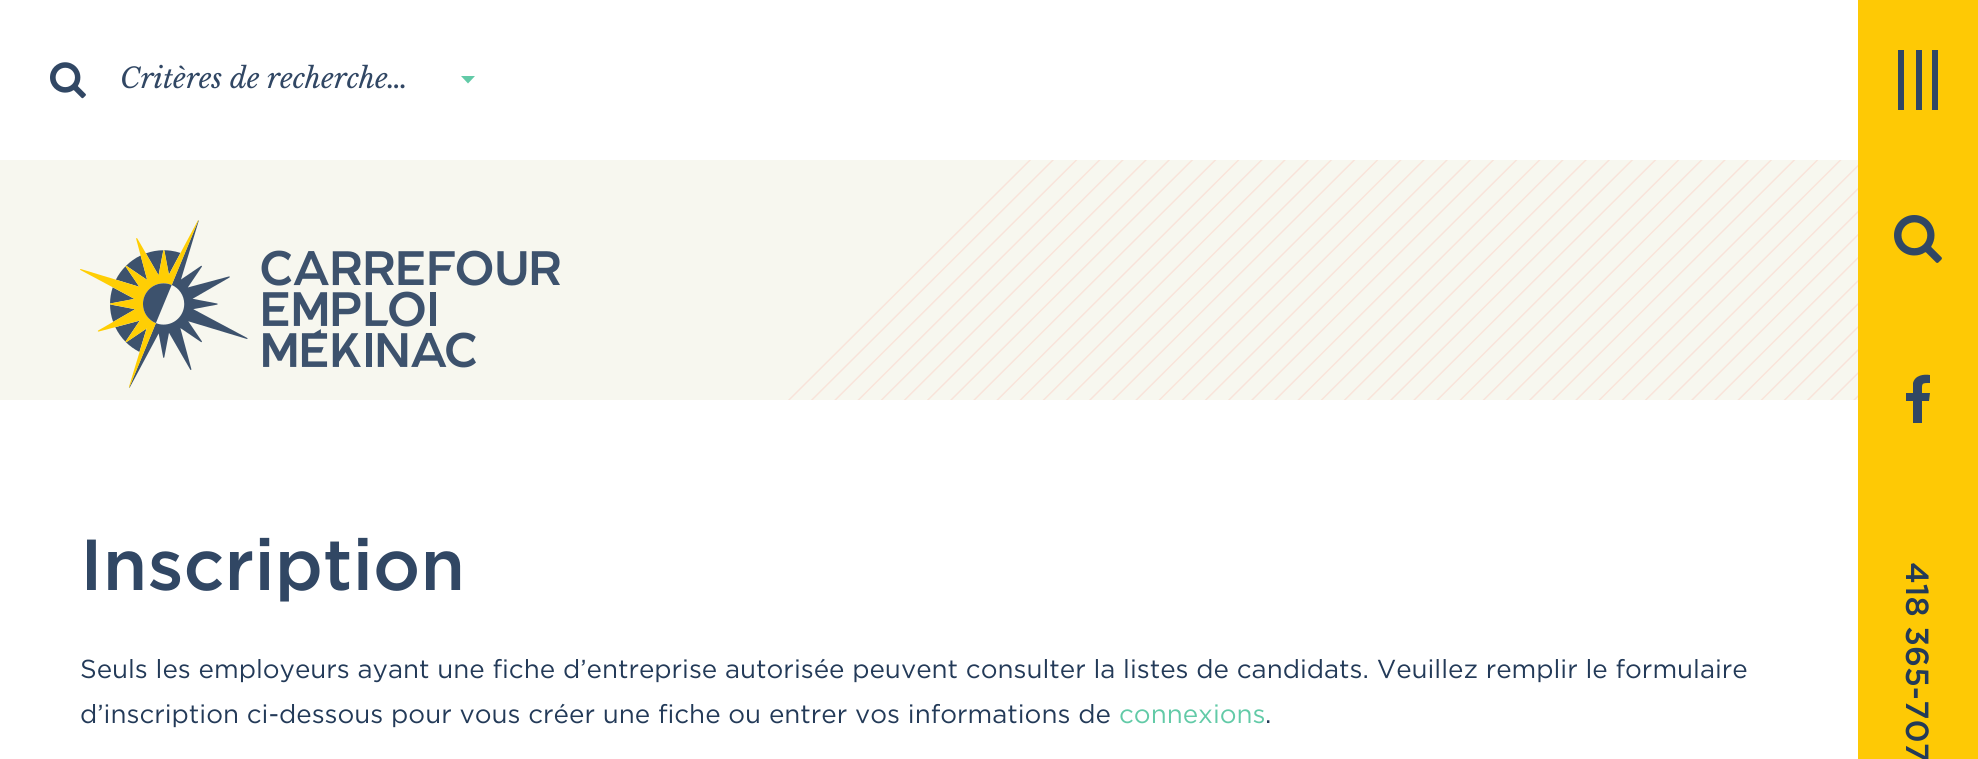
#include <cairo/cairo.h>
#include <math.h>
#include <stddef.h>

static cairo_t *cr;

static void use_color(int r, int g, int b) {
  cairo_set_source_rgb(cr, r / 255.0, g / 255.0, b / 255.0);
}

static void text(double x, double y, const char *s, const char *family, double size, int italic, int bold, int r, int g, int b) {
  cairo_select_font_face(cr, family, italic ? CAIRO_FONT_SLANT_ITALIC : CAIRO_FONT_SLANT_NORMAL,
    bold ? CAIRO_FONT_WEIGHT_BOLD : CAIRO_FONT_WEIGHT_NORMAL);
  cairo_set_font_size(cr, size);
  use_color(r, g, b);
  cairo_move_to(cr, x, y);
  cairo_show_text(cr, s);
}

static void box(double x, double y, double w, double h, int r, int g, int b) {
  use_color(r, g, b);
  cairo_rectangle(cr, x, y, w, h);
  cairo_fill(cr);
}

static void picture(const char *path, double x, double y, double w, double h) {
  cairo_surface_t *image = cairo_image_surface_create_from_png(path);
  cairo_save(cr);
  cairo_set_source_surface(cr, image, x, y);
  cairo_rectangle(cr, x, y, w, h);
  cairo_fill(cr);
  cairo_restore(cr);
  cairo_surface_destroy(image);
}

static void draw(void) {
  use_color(247, 247, 239);
  cairo_paint(cr);
  box(0, 0, 1858, 160, 255, 255, 255);
  picture("img_01.png", 50, 62, 36, 37);
  use_color(98, 202, 167);
  cairo_new_path(cr);
  cairo_move_to(cr, 461, 76);
  cairo_line_to(cr, 468, 83.5);
  cairo_line_to(cr, 475, 76);
  cairo_close_path(cr);
  cairo_fill(cr);
  picture("img_02.png", 80, 220, 480, 168);
  picture("img_03.png", 788, 160, 1070, 240);
  box(0, 400, 1858, 359, 255, 255, 255);
  box(1858, 0, 120, 759, 254, 201, 5);
  box(1898, 50, 6, 60, 49, 71, 100);
  box(1916, 50, 6, 60, 49, 71, 100);
  box(1932, 50, 6, 60, 49, 71, 100);
  picture("img_04.png", 1894, 215, 48, 48);
  cairo_new_path(cr);
  cairo_move_to(cr, 1913, 423);
  cairo_line_to(cr, 1913, 401);
  cairo_line_to(cr, 1906, 401);
  cairo_line_to(cr, 1906, 393);
  cairo_line_to(cr, 1913, 393);
  cairo_line_to(cr, 1913, 383);
  cairo_curve_to(cr, 1915, 375, 1924, 374, 1930, 375);
  cairo_line_to(cr, 1930, 383);
  cairo_curve_to(cr, 1921, 383, 1922, 383, 1922, 393);
  cairo_line_to(cr, 1930, 393);
  cairo_line_to(cr, 1929, 401);
  cairo_line_to(cr, 1922, 401);
  cairo_line_to(cr, 1922, 423);
  cairo_close_path(cr);
  cairo_fill(cr);
  text(120, 88, "Critères de recherche…", "Libre Baskerville", 28, 1, 0, 49, 71, 100);
  text(80, 590, "Inscription", "Gotham Medium", 72, 0, 0, 49, 71, 100);
  text(80, 678, "Seuls les employeurs ayant une fiche d’entreprise autorisée peuvent consulter la listes de candidats. Veuillez remplir le formulaire", "Gotham", 26, 0, 0, 35, 58, 88);
  text(80, 723, "d’inscription ci-dessous pour vous créer une fiche ou entrer vos informations de", "Gotham", 26, 0, 0, 35, 58, 88);
  text(1119, 723, "connexions", "Gotham", 26, 0, 0, 98, 202, 167);
  text(1265, 723, ".", "Gotham", 26, 0, 0, 35, 58, 88);
  cairo_save(cr);
  cairo_translate(cr, 1906, 562);
  cairo_rotate(cr, 90 * M_PI / 180);
  text(0, 0, "418 365-7070", "Gotham Medium", 32, 0, 0, 35, 58, 88);
  cairo_restore(cr);
}

int main(void) {
  cairo_surface_t *surface = cairo_image_surface_create(CAIRO_FORMAT_RGB24, 1978, 759);
  cr = cairo_create(surface);
  cairo_font_options_t *options = cairo_font_options_create();
  cairo_font_options_set_hint_metrics(options, CAIRO_HINT_METRICS_OFF);
  cairo_font_options_set_hint_style(options, CAIRO_HINT_STYLE_NONE);
  cairo_set_font_options(cr, options);
  cairo_set_miter_limit(cr, 4);
  draw();
  cairo_surface_write_to_png(surface, "out.png");
  cairo_font_options_destroy(options);
  cairo_destroy(cr);
  cairo_surface_destroy(surface);
  return 0;
}
